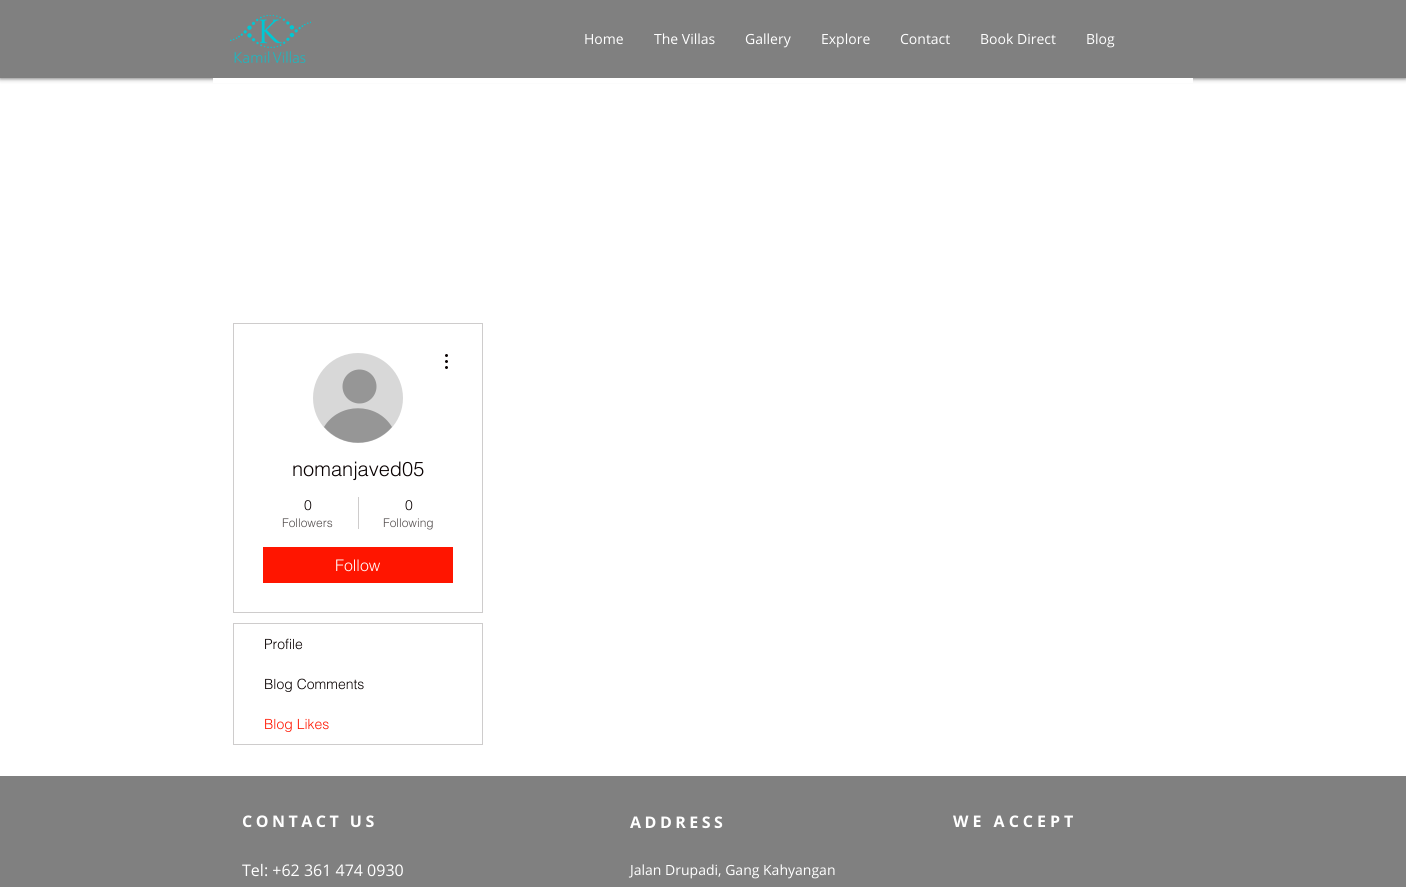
#include <cairo/cairo.h>
#include <math.h>
#include <stddef.h>

static cairo_t *cr;

static void use_color(int r, int g, int b) {
  cairo_set_source_rgb(cr, r / 255.0, g / 255.0, b / 255.0);
}

static void text(double x, double y, const char *s, const char *family, double size, int italic, int bold, int r, int g, int b) {
  cairo_select_font_face(cr, family, italic ? CAIRO_FONT_SLANT_ITALIC : CAIRO_FONT_SLANT_NORMAL,
    bold ? CAIRO_FONT_WEIGHT_BOLD : CAIRO_FONT_WEIGHT_NORMAL);
  cairo_set_font_size(cr, size);
  use_color(r, g, b);
  cairo_move_to(cr, x, y);
  cairo_show_text(cr, s);
}

static void spaced_text(double x, double y, const char *s, double letter, double word) {
  cairo_move_to(cr, x, y);
  while (*s) {
    char ch[5] = {0};
    int n = 0;
    do ch[n++] = *s++; while ((*s & 0xC0) == 0x80);
    cairo_show_text(cr, ch);
    cairo_rel_move_to(cr, letter + word * (*ch == ' '), 0);
  }
}

static void box(double x, double y, double w, double h, int r, int g, int b) {
  use_color(r, g, b);
  cairo_rectangle(cr, x, y, w, h);
  cairo_fill(cr);
}

static void round_rect(double x, double y, double w, double h, double r) {
  cairo_new_sub_path(cr);
  cairo_arc(cr, x + w - r, y + h - r, r, 0, M_PI / 2);
  cairo_arc(cr, x + r, y + h - r, r, M_PI / 2, M_PI);
  cairo_arc(cr, x + r, y + r, r, M_PI, 1.5 * M_PI);
  cairo_arc(cr, x + w - r, y + r, r, 1.5 * M_PI, 2 * M_PI);
  cairo_close_path(cr);
}

static void shadow(double x, double y, double w, double h, double r, double blur, double alpha) {
  cairo_push_group_with_content(cr, CAIRO_CONTENT_ALPHA);
  cairo_set_operator(cr, CAIRO_OPERATOR_SOURCE);
  for (int i = 15; i >= -15 && fmin(w, h) + blur * i / 3 > 0; i -= 2) {
    double e = blur * i / 6;
    cairo_set_source_rgba(cr, 0, 0, 0, alpha * erfc((i - 1) / 8.5) / 2);
    round_rect(x - e, y - e, w + 2 * e, h + 2 * e, fmax(0, fmin(r + e + blur * .6, fmin(w, h) / 2 + e)));
    cairo_fill(cr);
  }
  cairo_pattern_t *soft = cairo_pop_group(cr);
  cairo_mask(cr, soft);
  cairo_pattern_destroy(soft);
}

static void picture(const char *path, double x, double y, double w, double h) {
  cairo_surface_t *image = cairo_image_surface_create_from_png(path);
  cairo_save(cr);
  cairo_set_source_surface(cr, image, x, y);
  cairo_rectangle(cr, x, y, w, h);
  cairo_fill(cr);
  cairo_restore(cr);
  cairo_surface_destroy(image);
}

static void draw(void) {
  use_color(255, 255, 255);
  cairo_paint(cr);
  use_color(0, 0, 0);
  shadow(0, 0, 1406, 78, 0, 2.5, 0.7);
  box(0, 0, 1406, 78, 128, 128, 128);
  picture("img_01.png", 230, 15, 81, 48);
  box(213, 78, 980, 5, 255, 255, 255);
  cairo_rectangle(cr, 233.5, 323.5, 249, 289);
  use_color(206, 204, 204);
  cairo_set_line_width(cr, 1);
  cairo_stroke(cr);
  use_color(216, 216, 216);
  cairo_arc(cr, 358, 398, 45, 0, 2 * M_PI);
  cairo_fill(cr);
  use_color(150, 150, 150);
  cairo_arc(cr, 359.5, 386.5, 17, 0, 2 * M_PI);
  cairo_fill(cr);
  cairo_new_path(cr);
  cairo_move_to(cr, 392, 427);
  cairo_curve_to(cr, 374, 448, 342, 448, 324, 427);
  cairo_curve_to(cr, 339, 402, 377, 402, 392, 427);
  cairo_close_path(cr);
  cairo_fill(cr);
  picture("img_02.png", 445, 354, 3, 15);
  box(358, 497, 1, 32, 206, 204, 204);
  box(263, 547, 190, 36, 255, 21, 0);
  cairo_rectangle(cr, 233.5, 623.5, 249, 121);
  use_color(206, 204, 204);
  cairo_stroke(cr);
  box(0, 776, 1406, 111, 128, 128, 128);
  text(584, 44, "Home", "Open Sans", 14, 0, 0, 255, 255, 255);
  text(654, 44, "The Villas", "Open Sans", 14, 0, 0, 255, 255, 255);
  text(745, 44, "Gallery", "Open Sans", 14, 0, 0, 255, 255, 255);
  text(821, 44, "Explore", "Open Sans", 14, 0, 0, 255, 255, 255);
  text(900, 44, "Contact", "Open Sans", 14, 0, 0, 255, 255, 255);
  text(980, 44, "Book Direct", "Open Sans", 14, 0, 0, 255, 255, 255);
  text(1086, 44, "Blog", "Open Sans", 14, 0, 0, 255, 255, 255);
  text(292, 476, "nomanjaved05", "helvetica Light", 20, 0, 0, 8, 0, 0);
  text(304, 510, "0", "helvetica Light", 14, 0, 0, 8, 0, 0);
  text(282, 527, "Followers", "helvetica Light", 12, 0, 0, 82, 77, 77);
  text(405, 510, "0", "helvetica Light", 14, 0, 0, 8, 0, 0);
  text(383, 527, "Following", "helvetica Light", 12, 0, 0, 82, 77, 77);
  text(335, 571, "Follow", "helvetica Light", 16, 0, 0, 255, 255, 255);
  text(264, 649, "Profile", "helvetica Light", 14, 0, 0, 8, 0, 0);
  text(264, 689, "Blog Comments", "helvetica Light", 14, 0, 0, 8, 0, 0);
  text(264, 729, "Blog Likes", "helvetica Light", 14, 0, 0, 255, 21, 0);
  cairo_select_font_face(cr, "Open Sans", CAIRO_FONT_SLANT_NORMAL, CAIRO_FONT_WEIGHT_BOLD);
  cairo_set_font_size(cr, 16);
  use_color(255, 255, 255);
  spaced_text(242, 827, "CONTACT US", 3.5, 0);
  text(242, 876, "Tel: +62 361 474 0930", "Open Sans", 16, 0, 0, 255, 255, 255);
  cairo_select_font_face(cr, "Open Sans", CAIRO_FONT_SLANT_NORMAL, CAIRO_FONT_WEIGHT_BOLD);
  spaced_text(630, 828, "ADDRESS", 3.5, 0);
  text(630, 875, "Jalan Drupadi, Gang Kahyangan", "Open Sans", 14, 0, 0, 255, 255, 255);
  cairo_select_font_face(cr, "Open Sans", CAIRO_FONT_SLANT_NORMAL, CAIRO_FONT_WEIGHT_BOLD);
  cairo_set_font_size(cr, 16);
  spaced_text(953, 827, "WE ACCEPT", 4, 0);
}

int main(void) {
  cairo_surface_t *surface = cairo_image_surface_create(CAIRO_FORMAT_RGB24, 1406, 887);
  cr = cairo_create(surface);
  cairo_font_options_t *options = cairo_font_options_create();
  cairo_font_options_set_hint_metrics(options, CAIRO_HINT_METRICS_OFF);
  cairo_font_options_set_hint_style(options, CAIRO_HINT_STYLE_NONE);
  cairo_set_font_options(cr, options);
  cairo_set_miter_limit(cr, 4);
  draw();
  cairo_surface_write_to_png(surface, "out.png");
  cairo_font_options_destroy(options);
  cairo_destroy(cr);
  cairo_surface_destroy(surface);
  return 0;
}
